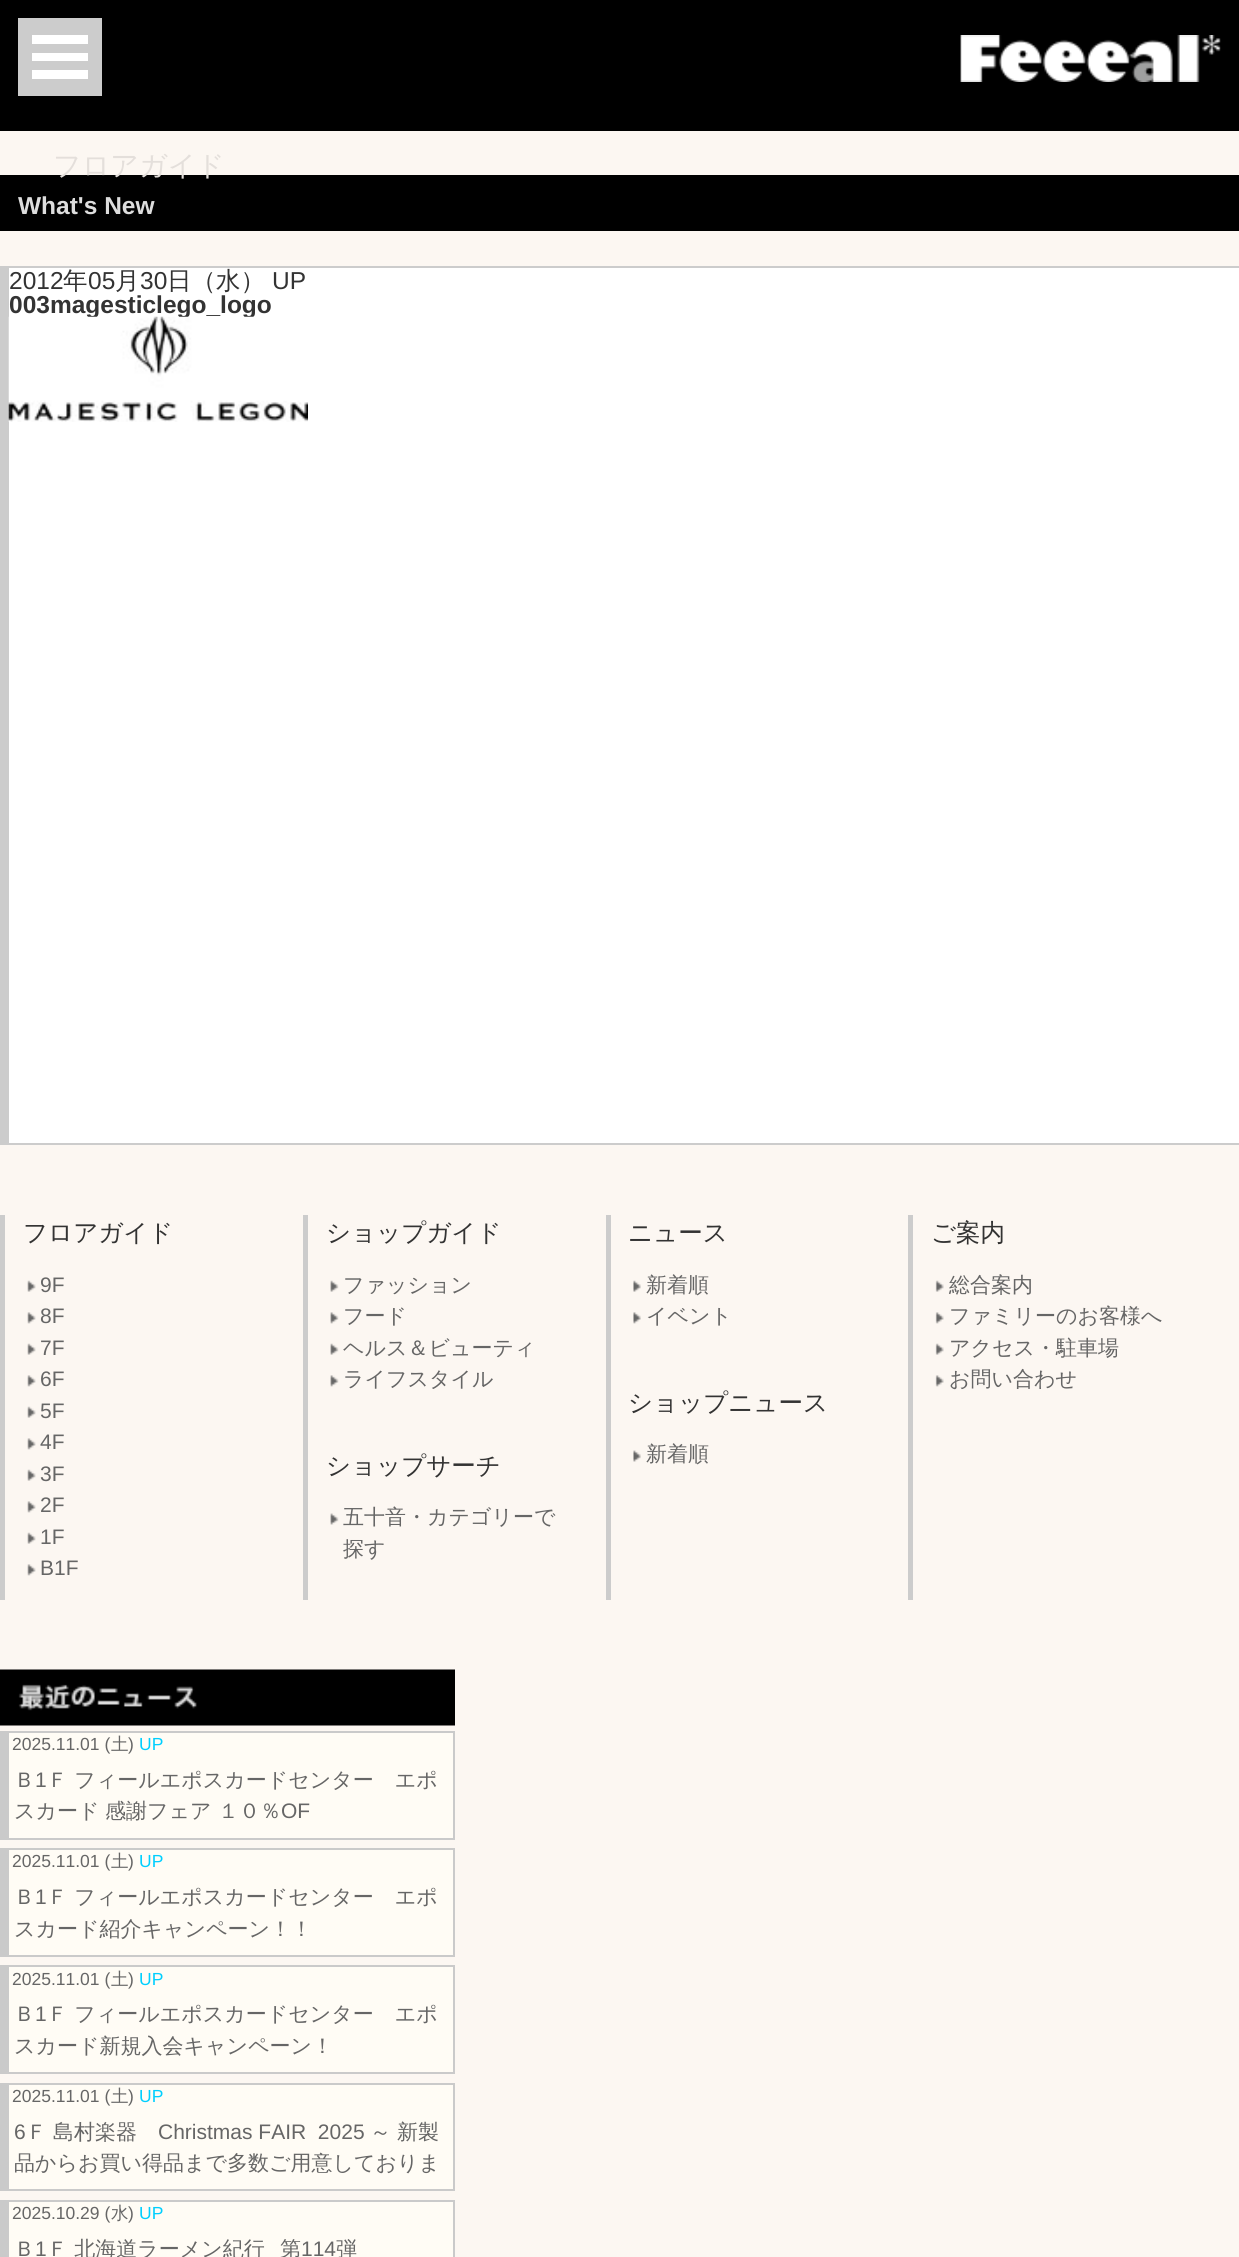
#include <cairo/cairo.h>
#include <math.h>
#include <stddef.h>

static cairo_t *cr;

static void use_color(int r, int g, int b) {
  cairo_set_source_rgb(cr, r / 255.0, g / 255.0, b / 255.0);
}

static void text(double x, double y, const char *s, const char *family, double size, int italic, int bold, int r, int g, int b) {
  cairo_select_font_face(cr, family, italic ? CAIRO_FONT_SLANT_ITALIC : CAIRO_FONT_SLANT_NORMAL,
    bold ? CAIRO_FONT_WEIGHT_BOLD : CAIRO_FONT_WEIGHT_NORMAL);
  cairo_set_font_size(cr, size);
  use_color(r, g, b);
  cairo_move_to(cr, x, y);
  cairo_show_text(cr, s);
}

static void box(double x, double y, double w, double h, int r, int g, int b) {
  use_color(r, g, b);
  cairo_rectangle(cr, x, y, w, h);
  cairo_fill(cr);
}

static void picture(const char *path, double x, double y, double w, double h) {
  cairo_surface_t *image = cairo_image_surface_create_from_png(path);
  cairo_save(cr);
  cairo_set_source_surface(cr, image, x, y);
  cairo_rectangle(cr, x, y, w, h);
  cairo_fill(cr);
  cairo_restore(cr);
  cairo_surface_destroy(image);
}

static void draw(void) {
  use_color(252, 247, 242);
  cairo_paint(cr);
  box(0, 0, 1239, 131, 0, 0, 0);
  picture("img_01.png", 960, 35, 261, 47);
  box(18, 18, 84, 78, 204, 204, 204);
  box(32, 70, 56, 9, 255, 255, 255);
  box(32, 53, 56, 8, 255, 255, 255);
  box(32, 35, 56, 9, 255, 255, 255);
  box(0, 175, 1239, 56, 0, 0, 0);
  box(9, 268, 1230, 875, 255, 255, 255);
  box(9, 266, 1230, 2, 204, 204, 204);
  box(9, 1143, 1230, 2, 204, 204, 204);
  box(0, 266, 9, 879, 204, 204, 204);
  box(0, 1215, 5, 385, 204, 204, 204);
  picture("img_03.png", 27, 1280, 9, 12);
  picture("img_04.png", 27, 1312, 9, 12);
  picture("img_03.png", 27, 1343, 9, 12);
  picture("img_04.png", 27, 1375, 9, 12);
  picture("img_03.png", 27, 1406, 9, 12);
  picture("img_04.png", 27, 1438, 9, 12);
  picture("img_03.png", 27, 1469, 9, 12);
  picture("img_04.png", 27, 1501, 9, 12);
  picture("img_03.png", 27, 1532, 9, 12);
  picture("img_04.png", 27, 1564, 9, 12);
  box(303, 1215, 5, 385, 204, 204, 204);
  picture("img_05.png", 330, 1280, 9, 12);
  picture("img_06.png", 330, 1312, 9, 12);
  picture("img_05.png", 330, 1343, 9, 12);
  picture("img_06.png", 330, 1375, 9, 12);
  picture("img_07.png", 330, 1513, 9, 12);
  box(606, 1215, 5, 385, 204, 204, 204);
  picture("img_08.png", 633, 1280, 8, 12);
  picture("img_09.png", 633, 1312, 8, 12);
  picture("img_10.png", 633, 1450, 8, 12);
  box(908, 1215, 5, 385, 204, 204, 204);
  picture("img_11.png", 935, 1280, 9, 12);
  picture("img_12.png", 935, 1312, 9, 12);
  picture("img_11.png", 935, 1343, 9, 12);
  picture("img_12.png", 935, 1375, 9, 12);
  picture("img_13.png", 0, 1669, 455, 57);
  box(9, 1733, 444, 105, 255, 252, 245);
  box(9, 1731, 446, 2, 202, 202, 202);
  box(453, 1731, 2, 108, 202, 202, 202);
  box(0, 1838, 455, 2, 202, 202, 202);
  box(0, 1731, 9, 107, 202, 202, 202);
  box(9, 1850, 444, 105, 255, 252, 245);
  box(9, 1848, 446, 2, 202, 202, 202);
  box(453, 1848, 2, 109, 202, 202, 202);
  box(9, 1955, 446, 2, 202, 202, 202);
  box(0, 1848, 9, 109, 202, 202, 202);
  box(9, 1967, 444, 105, 255, 252, 245);
  box(9, 1965, 446, 2, 202, 202, 202);
  box(453, 1965, 2, 109, 202, 202, 202);
  box(9, 2072, 446, 2, 202, 202, 202);
  box(0, 1965, 9, 109, 202, 202, 202);
  box(9, 2085, 444, 104, 255, 252, 245);
  box(9, 2083, 446, 2, 202, 202, 202);
  box(453, 2083, 2, 108, 202, 202, 202);
  box(9, 2189, 446, 2, 202, 202, 202);
  box(0, 2083, 9, 108, 202, 202, 202);
  box(9, 2202, 444, 55, 255, 252, 245);
  box(9, 2200, 446, 2, 202, 202, 202);
  box(453, 2200, 2, 57, 202, 202, 202);
  box(0, 2200, 9, 57, 202, 202, 202);
  text(53, 175, "フロアガイド", "WenQuanYi Zen Hei Medium", 28, 0, 0, 228, 223, 219);
  text(18, 214, "What's New", "Liberation Sans", 24.5, 0, 1, 221, 221, 221);
  text(9, 289, "2012", "Liberation Sans", 24.5, 0, 0, 51, 51, 51);
  text(63, 289, "年", "WenQuanYi Zen Hei Medium", 24.5, 0, 0, 51, 51, 51);
  text(88, 289, "05", "Liberation Sans", 24.5, 0, 0, 51, 51, 51);
  text(115, 289, "月", "WenQuanYi Zen Hei Medium", 24.5, 0, 0, 51, 51, 51);
  text(140, 289, "30", "Liberation Sans", 24.5, 0, 0, 51, 51, 51);
  text(167, 289, "日（水）", "WenQuanYi Zen Hei Medium", 24.5, 0, 0, 51, 51, 51);
  text(272, 289, "UP", "Liberation Sans", 24.5, 0, 0, 51, 51, 51);
  text(9, 313, "003magesticlego_logo", "Liberation Sans", 24.5, 0, 1, 51, 51, 51);
  picture("img_02.png", 8, 316, 300, 106);
  text(23, 1241, "フロアガイド", "WenQuanYi Zen Hei Medium", 24.5, 0, 0, 51, 51, 51);
  text(40, 1292, "9F", "Liberation Sans", 21, 0, 0, 102, 102, 102);
  text(40, 1323, "8F", "Liberation Sans", 21, 0, 0, 102, 102, 102);
  text(40, 1355, "7F", "Liberation Sans", 21, 0, 0, 102, 102, 102);
  text(40, 1386, "6F", "Liberation Sans", 21, 0, 0, 102, 102, 102);
  text(40, 1418, "5F", "Liberation Sans", 21, 0, 0, 102, 102, 102);
  text(40, 1449, "4F", "Liberation Sans", 21, 0, 0, 102, 102, 102);
  text(40, 1481, "3F", "Liberation Sans", 21, 0, 0, 102, 102, 102);
  text(40, 1512, "2F", "Liberation Sans", 21, 0, 0, 102, 102, 102);
  text(40, 1544, "1F", "Liberation Sans", 21, 0, 0, 102, 102, 102);
  text(40, 1575, "B1F", "Liberation Sans", 21, 0, 0, 102, 102, 102);
  text(326, 1241, "ショップガイド", "WenQuanYi Zen Hei Medium", 24.5, 0, 0, 51, 51, 51);
  text(343, 1292, "ファッション", "WenQuanYi Zen Hei Medium", 21, 0, 0, 102, 102, 102);
  text(343, 1323, "フード", "WenQuanYi Zen Hei Medium", 21, 0, 0, 102, 102, 102);
  text(343, 1355, "ヘルス＆ビューティ", "WenQuanYi Zen Hei Medium", 21, 0, 0, 102, 102, 102);
  text(343, 1386, "ライフスタイル", "WenQuanYi Zen Hei Medium", 21, 0, 0, 102, 102, 102);
  text(326, 1474, "ショップサーチ", "WenQuanYi Zen Hei Medium", 24.5, 0, 0, 51, 51, 51);
  text(343, 1524, "五十音・カテゴリーで", "WenQuanYi Zen Hei Medium", 21, 0, 0, 102, 102, 102);
  text(343, 1556, "探す", "WenQuanYi Zen Hei Medium", 21, 0, 0, 102, 102, 102);
  text(628, 1241, "ニュース", "WenQuanYi Zen Hei Medium", 24.5, 0, 0, 51, 51, 51);
  text(646, 1292, "新着順", "WenQuanYi Zen Hei Medium", 21, 0, 0, 102, 102, 102);
  text(646, 1323, "イベント", "WenQuanYi Zen Hei Medium", 21, 0, 0, 102, 102, 102);
  text(628, 1411, "ショップニュース", "WenQuanYi Zen Hei Medium", 24.5, 0, 0, 51, 51, 51);
  text(646, 1461, "新着順", "WenQuanYi Zen Hei Medium", 21, 0, 0, 102, 102, 102);
  text(931, 1241, "ご案内", "WenQuanYi Zen Hei Medium", 24.5, 0, 0, 51, 51, 51);
  text(949, 1292, "総合案内", "WenQuanYi Zen Hei Medium", 21, 0, 0, 102, 102, 102);
  text(949, 1323, "ファミリーのお客様へ", "WenQuanYi Zen Hei Medium", 21, 0, 0, 102, 102, 102);
  text(949, 1355, "アクセス・駐車場", "WenQuanYi Zen Hei Medium", 21, 0, 0, 102, 102, 102);
  text(949, 1386, "お問い合わせ", "WenQuanYi Zen Hei Medium", 21, 0, 0, 102, 102, 102);
  text(12, 1750, "2025.11.01 (", "Liberation Sans", 17.5, 0, 0, 102, 102, 102);
  text(111, 1750, "土", "WenQuanYi Zen Hei Medium", 17.5, 0, 0, 102, 102, 102);
  text(128, 1750, ")", "Liberation Sans", 17.5, 0, 0, 102, 102, 102);
  text(139, 1750, "UP", "Liberation Sans", 17.5, 0, 0, 0, 207, 255);
  text(14, 1787, "Ｂ", "WenQuanYi Zen Hei Medium", 21, 0, 0, 102, 102, 102);
  text(35, 1787, "1", "Liberation Sans", 21, 0, 0, 102, 102, 102);
  text(47, 1787, "Ｆ フィールエポスカードセンター　エポ", "WenQuanYi Zen Hei Medium", 21, 0, 0, 102, 102, 102);
  text(14, 1818, "スカード", "WenQuanYi Zen Hei Medium", 21, 0, 0, 102, 102, 102);
  text(105, 1818, "感謝フェア", "WenQuanYi Zen Hei Medium", 21, 0, 0, 102, 102, 102);
  text(218, 1818, "１０％", "WenQuanYi Zen Hei Medium", 21, 0, 0, 102, 102, 102);
  text(281, 1818, "OF", "Liberation Sans", 21, 0, 0, 102, 102, 102);
  text(12, 1867, "2025.11.01 (", "Liberation Sans", 17.5, 0, 0, 102, 102, 102);
  text(111, 1867, "土", "WenQuanYi Zen Hei Medium", 17.5, 0, 0, 102, 102, 102);
  text(128, 1867, ")", "Liberation Sans", 17.5, 0, 0, 102, 102, 102);
  text(139, 1867, "UP", "Liberation Sans", 17.5, 0, 0, 0, 207, 255);
  text(14, 1904, "Ｂ", "WenQuanYi Zen Hei Medium", 21, 0, 0, 102, 102, 102);
  text(35, 1904, "1", "Liberation Sans", 21, 0, 0, 102, 102, 102);
  text(47, 1904, "Ｆ フィールエポスカードセンター　エポ", "WenQuanYi Zen Hei Medium", 21, 0, 0, 102, 102, 102);
  text(14, 1936, "スカード紹介キャンペーン！！", "WenQuanYi Zen Hei Medium", 21, 0, 0, 102, 102, 102);
  text(12, 1985, "2025.11.01 (", "Liberation Sans", 17.5, 0, 0, 102, 102, 102);
  text(111, 1985, "土", "WenQuanYi Zen Hei Medium", 17.5, 0, 0, 102, 102, 102);
  text(128, 1985, ")", "Liberation Sans", 17.5, 0, 0, 102, 102, 102);
  text(139, 1985, "UP", "Liberation Sans", 17.5, 0, 0, 0, 207, 255);
  text(14, 2021, "Ｂ", "WenQuanYi Zen Hei Medium", 21, 0, 0, 102, 102, 102);
  text(35, 2021, "1", "Liberation Sans", 21, 0, 0, 102, 102, 102);
  text(47, 2021, "Ｆ フィールエポスカードセンター　エポ", "WenQuanYi Zen Hei Medium", 21, 0, 0, 102, 102, 102);
  text(14, 2053, "スカード新規入会キャンペーン！", "WenQuanYi Zen Hei Medium", 21, 0, 0, 102, 102, 102);
  text(12, 2102, "2025.11.01 (", "Liberation Sans", 17.5, 0, 0, 102, 102, 102);
  text(111, 2102, "土", "WenQuanYi Zen Hei Medium", 17.5, 0, 0, 102, 102, 102);
  text(128, 2102, ")", "Liberation Sans", 17.5, 0, 0, 102, 102, 102);
  text(139, 2102, "UP", "Liberation Sans", 17.5, 0, 0, 0, 207, 255);
  text(14, 2139, "6", "Liberation Sans", 21, 0, 0, 102, 102, 102);
  text(26, 2139, "Ｆ", "WenQuanYi Zen Hei Medium", 21, 0, 0, 102, 102, 102);
  text(53, 2139, "島村楽器", "WenQuanYi Zen Hei Medium", 21, 0, 0, 102, 102, 102);
  text(158, 2139, "Christmas FAIR  2025", "Liberation Sans", 21, 0, 0, 102, 102, 102);
  text(370, 2139, "～", "WenQuanYi Zen Hei Medium", 21, 0, 0, 102, 102, 102);
  text(397, 2139, "新製", "WenQuanYi Zen Hei Medium", 21, 0, 0, 102, 102, 102);
  text(14, 2170, "品からお買い得品まで多数ご用意しておりま", "WenQuanYi Zen Hei Medium", 21, 0, 0, 102, 102, 102);
  text(12, 2219, "2025.10.29 (", "Liberation Sans", 17.5, 0, 0, 102, 102, 102);
  text(111, 2219, "水", "WenQuanYi Zen Hei Medium", 17.5, 0, 0, 102, 102, 102);
  text(128, 2219, ")", "Liberation Sans", 17.5, 0, 0, 102, 102, 102);
  text(139, 2219, "UP", "Liberation Sans", 17.5, 0, 0, 0, 207, 255);
  text(14, 2256, "Ｂ", "WenQuanYi Zen Hei Medium", 21, 0, 0, 102, 102, 102);
  text(35, 2256, "1", "Liberation Sans", 21, 0, 0, 102, 102, 102);
  text(47, 2256, "Ｆ 北海道ラーメン紀行", "WenQuanYi Zen Hei Medium", 21, 0, 0, 102, 102, 102);
  text(280, 2256, "第", "WenQuanYi Zen Hei Medium", 21, 0, 0, 102, 102, 102);
  text(301, 2256, "114", "Liberation Sans", 21, 0, 0, 102, 102, 102);
  text(336, 2256, "弾", "WenQuanYi Zen Hei Medium", 21, 0, 0, 102, 102, 102);
}

int main(void) {
  cairo_surface_t *surface = cairo_image_surface_create(CAIRO_FORMAT_RGB24, 1239, 2257);
  cr = cairo_create(surface);
  cairo_font_options_t *options = cairo_font_options_create();
  cairo_font_options_set_hint_metrics(options, CAIRO_HINT_METRICS_OFF);
  cairo_font_options_set_hint_style(options, CAIRO_HINT_STYLE_NONE);
  cairo_set_font_options(cr, options);
  cairo_set_miter_limit(cr, 4);
  draw();
  cairo_surface_write_to_png(surface, "out.png");
  cairo_font_options_destroy(options);
  cairo_destroy(cr);
  cairo_surface_destroy(surface);
  return 0;
}
